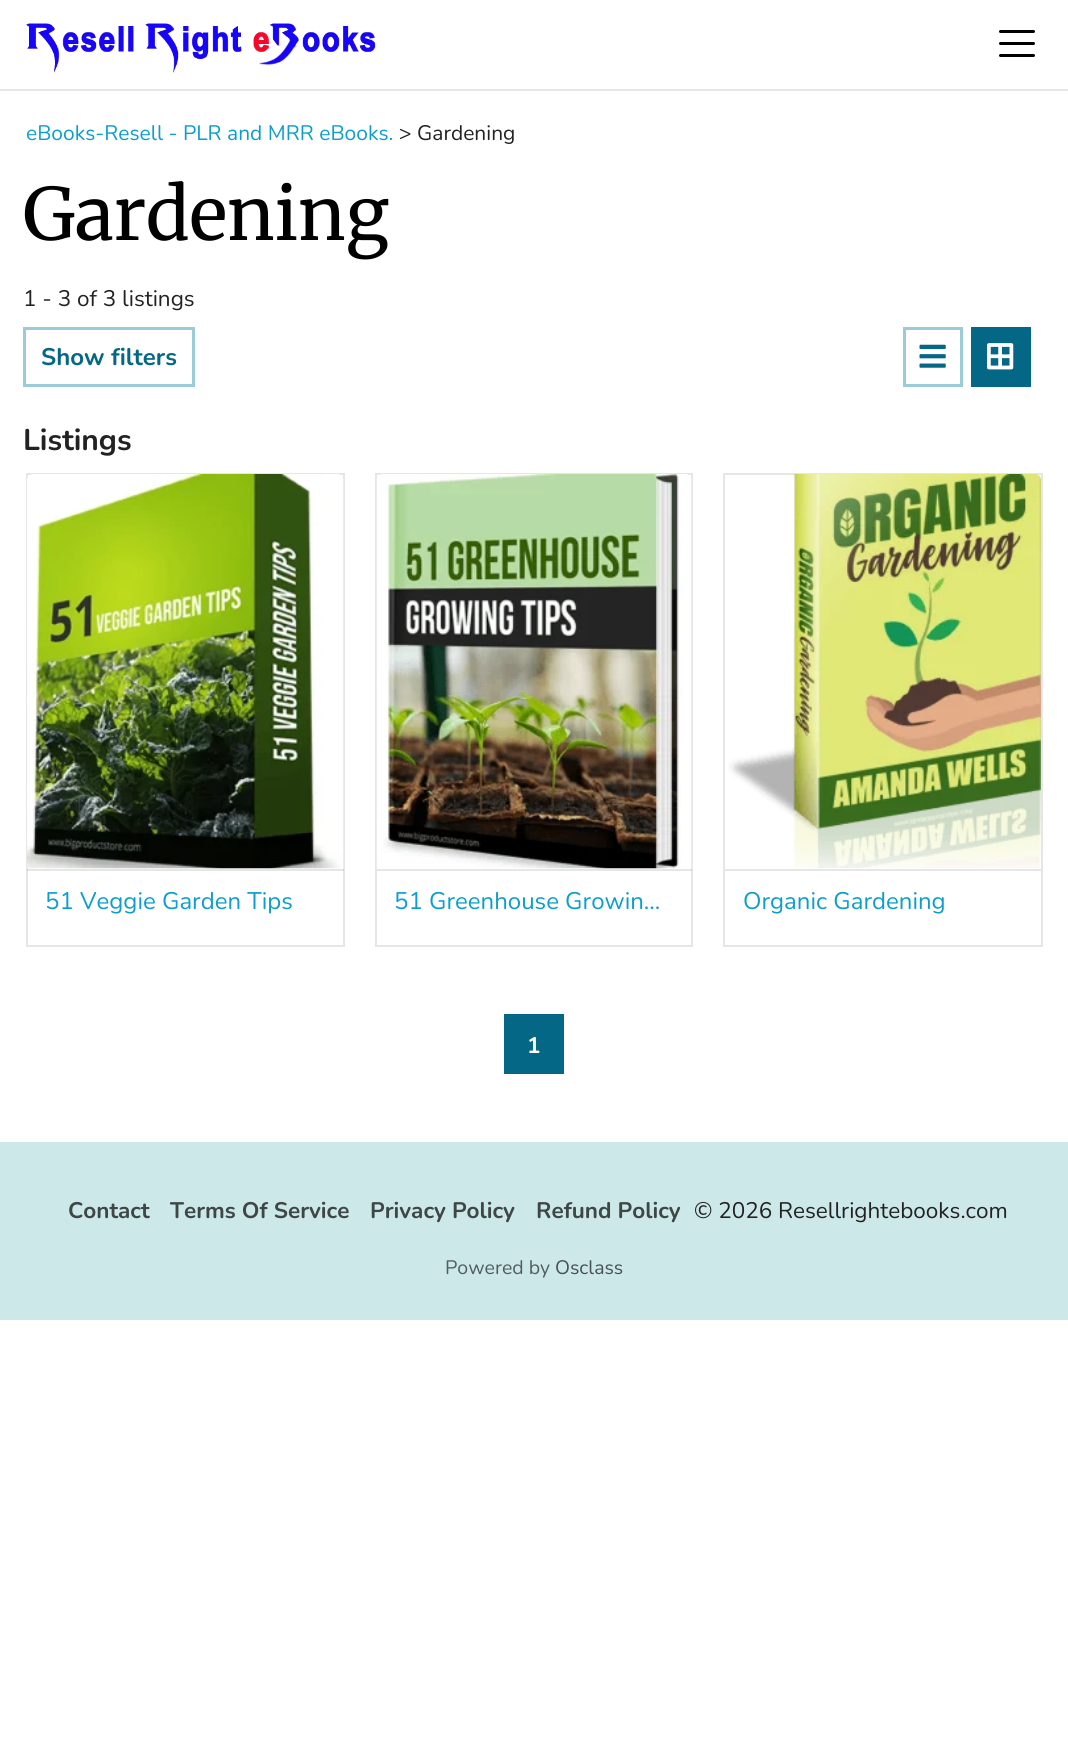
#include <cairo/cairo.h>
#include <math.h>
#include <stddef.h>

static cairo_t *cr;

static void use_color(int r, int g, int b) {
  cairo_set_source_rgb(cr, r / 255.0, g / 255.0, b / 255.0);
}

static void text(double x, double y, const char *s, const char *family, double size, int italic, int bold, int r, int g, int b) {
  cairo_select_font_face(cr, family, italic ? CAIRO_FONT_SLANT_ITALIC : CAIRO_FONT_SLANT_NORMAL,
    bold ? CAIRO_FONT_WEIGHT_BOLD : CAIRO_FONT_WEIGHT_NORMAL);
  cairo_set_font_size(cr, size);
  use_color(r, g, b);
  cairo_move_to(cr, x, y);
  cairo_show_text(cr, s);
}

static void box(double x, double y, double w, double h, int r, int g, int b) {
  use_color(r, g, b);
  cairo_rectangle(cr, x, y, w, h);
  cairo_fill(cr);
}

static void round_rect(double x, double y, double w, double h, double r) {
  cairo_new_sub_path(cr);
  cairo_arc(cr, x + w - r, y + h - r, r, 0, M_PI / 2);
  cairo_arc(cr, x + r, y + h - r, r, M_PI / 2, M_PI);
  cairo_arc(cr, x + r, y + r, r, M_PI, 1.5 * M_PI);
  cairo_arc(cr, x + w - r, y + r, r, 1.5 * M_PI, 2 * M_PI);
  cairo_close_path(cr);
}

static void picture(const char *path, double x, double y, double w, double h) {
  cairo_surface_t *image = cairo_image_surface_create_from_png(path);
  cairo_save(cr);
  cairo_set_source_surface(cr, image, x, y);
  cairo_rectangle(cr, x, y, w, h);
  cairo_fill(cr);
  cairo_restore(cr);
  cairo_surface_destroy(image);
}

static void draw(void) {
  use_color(255, 255, 255);
  cairo_paint(cr);
  box(0, 89, 1068, 2, 230, 230, 230);
  picture("img_01.png", 26, 23, 350, 51);
  use_color(0, 0, 0);
  round_rect(999, 30, 36, 3, 1.5);
  cairo_fill(cr);
  round_rect(999, 42, 36, 3, 1.5);
  cairo_fill(cr);
  round_rect(999, 54, 36, 3, 1.5);
  cairo_fill(cr);
  cairo_rectangle(cr, 24.5, 328.5, 169, 57);
  use_color(155, 202, 216);
  cairo_set_line_width(cr, 3);
  cairo_stroke(cr);
  cairo_rectangle(cr, 904.5, 328.5, 57, 57);
  cairo_stroke(cr);
  picture("img_02.png", 919, 344, 27, 24);
  box(971, 327, 60, 60, 5, 103, 134);
  picture("img_03.png", 987, 343, 27, 27);
  cairo_rectangle(cr, 27, 474, 317, 472);
  use_color(230, 230, 230);
  cairo_set_line_width(cr, 2);
  cairo_stroke(cr);
  cairo_set_source_rgba(cr, 0, 0, 0, 0.1);
  cairo_rectangle(cr, 27, 869, 317, 2);
  cairo_fill(cr);
  picture("img_04.png", 27, 474, 317, 395);
  cairo_rectangle(cr, 376, 474, 316, 472);
  use_color(230, 230, 230);
  cairo_stroke(cr);
  cairo_set_source_rgba(cr, 0, 0, 0, 0.1);
  cairo_rectangle(cr, 377, 869, 315, 2);
  cairo_fill(cr);
  picture("img_05.png", 376, 474, 316, 395);
  cairo_rectangle(cr, 724, 474, 318, 472);
  use_color(230, 230, 230);
  cairo_stroke(cr);
  box(725, 869, 316, 2, 230, 230, 230);
  picture("img_06.png", 728, 474, 313, 394);
  box(504, 1014, 60, 60, 5, 103, 134);
  box(0, 1142, 1068, 178, 205, 232, 233);
  text(26, 140, "eBooks-Resell - PLR and MRR eBooks.", "Nunito", 21, 0, 0, 13, 158, 204);
  text(399, 140, "> Gardening", "Nunito", 21, 0, 0, 34, 34, 34);
  text(23, 240, "Gardening", "Merriweather", 72, 0, 0, 0, 0, 0);
  text(23, 306, "1 - 3 of 3 listings", "Nunito", 22.5, 0, 0, 34, 34, 34);
  text(41, 365, "Show filters", "Nunito", 24, 0, 1, 5, 103, 134);
  text(23, 450, "Listings", "Nunito", 30, 0, 1, 34, 34, 34);
  text(45, 909, "51 Veggie Garden Tips", "Nunito", 24, 0, 0, 13, 158, 204);
  text(394, 909, "51 Greenhouse Growin…", "Nunito", 24, 0, 0, 13, 158, 204);
  text(743, 909, "Organic Gardening", "Nunito", 24, 0, 0, 13, 158, 204);
  text(527, 1053, "1", "Nunito", 22.5, 0, 1, 255, 255, 255);
  text(68, 1218, "Contact", "Nunito", 22.5, 0, 1, 62, 70, 70);
  text(170, 1218, "Terms Of Service", "Nunito", 22.5, 0, 1, 62, 70, 70);
  text(370, 1218, "Privacy Policy", "Nunito", 22.5, 0, 1, 62, 70, 70);
  text(536, 1218, "Refund Policy", "Nunito", 22.5, 0, 1, 62, 70, 70);
  text(694, 1218, "© 2026 Resellrightebooks.com", "Nunito", 22.5, 0, 0, 34, 34, 34);
  text(445, 1274, "Powered by", "Nunito", 19.5, 0, 0, 82, 93, 93);
  text(555, 1274, "Osclass", "Nunito", 19.5, 0, 0, 72, 81, 82);
}

int main(void) {
  cairo_surface_t *surface = cairo_image_surface_create(CAIRO_FORMAT_RGB24, 1068, 1760);
  cr = cairo_create(surface);
  cairo_font_options_t *options = cairo_font_options_create();
  cairo_font_options_set_hint_metrics(options, CAIRO_HINT_METRICS_OFF);
  cairo_font_options_set_hint_style(options, CAIRO_HINT_STYLE_NONE);
  cairo_set_font_options(cr, options);
  cairo_set_miter_limit(cr, 4);
  draw();
  cairo_surface_write_to_png(surface, "out.png");
  cairo_font_options_destroy(options);
  cairo_destroy(cr);
  cairo_surface_destroy(surface);
  return 0;
}
